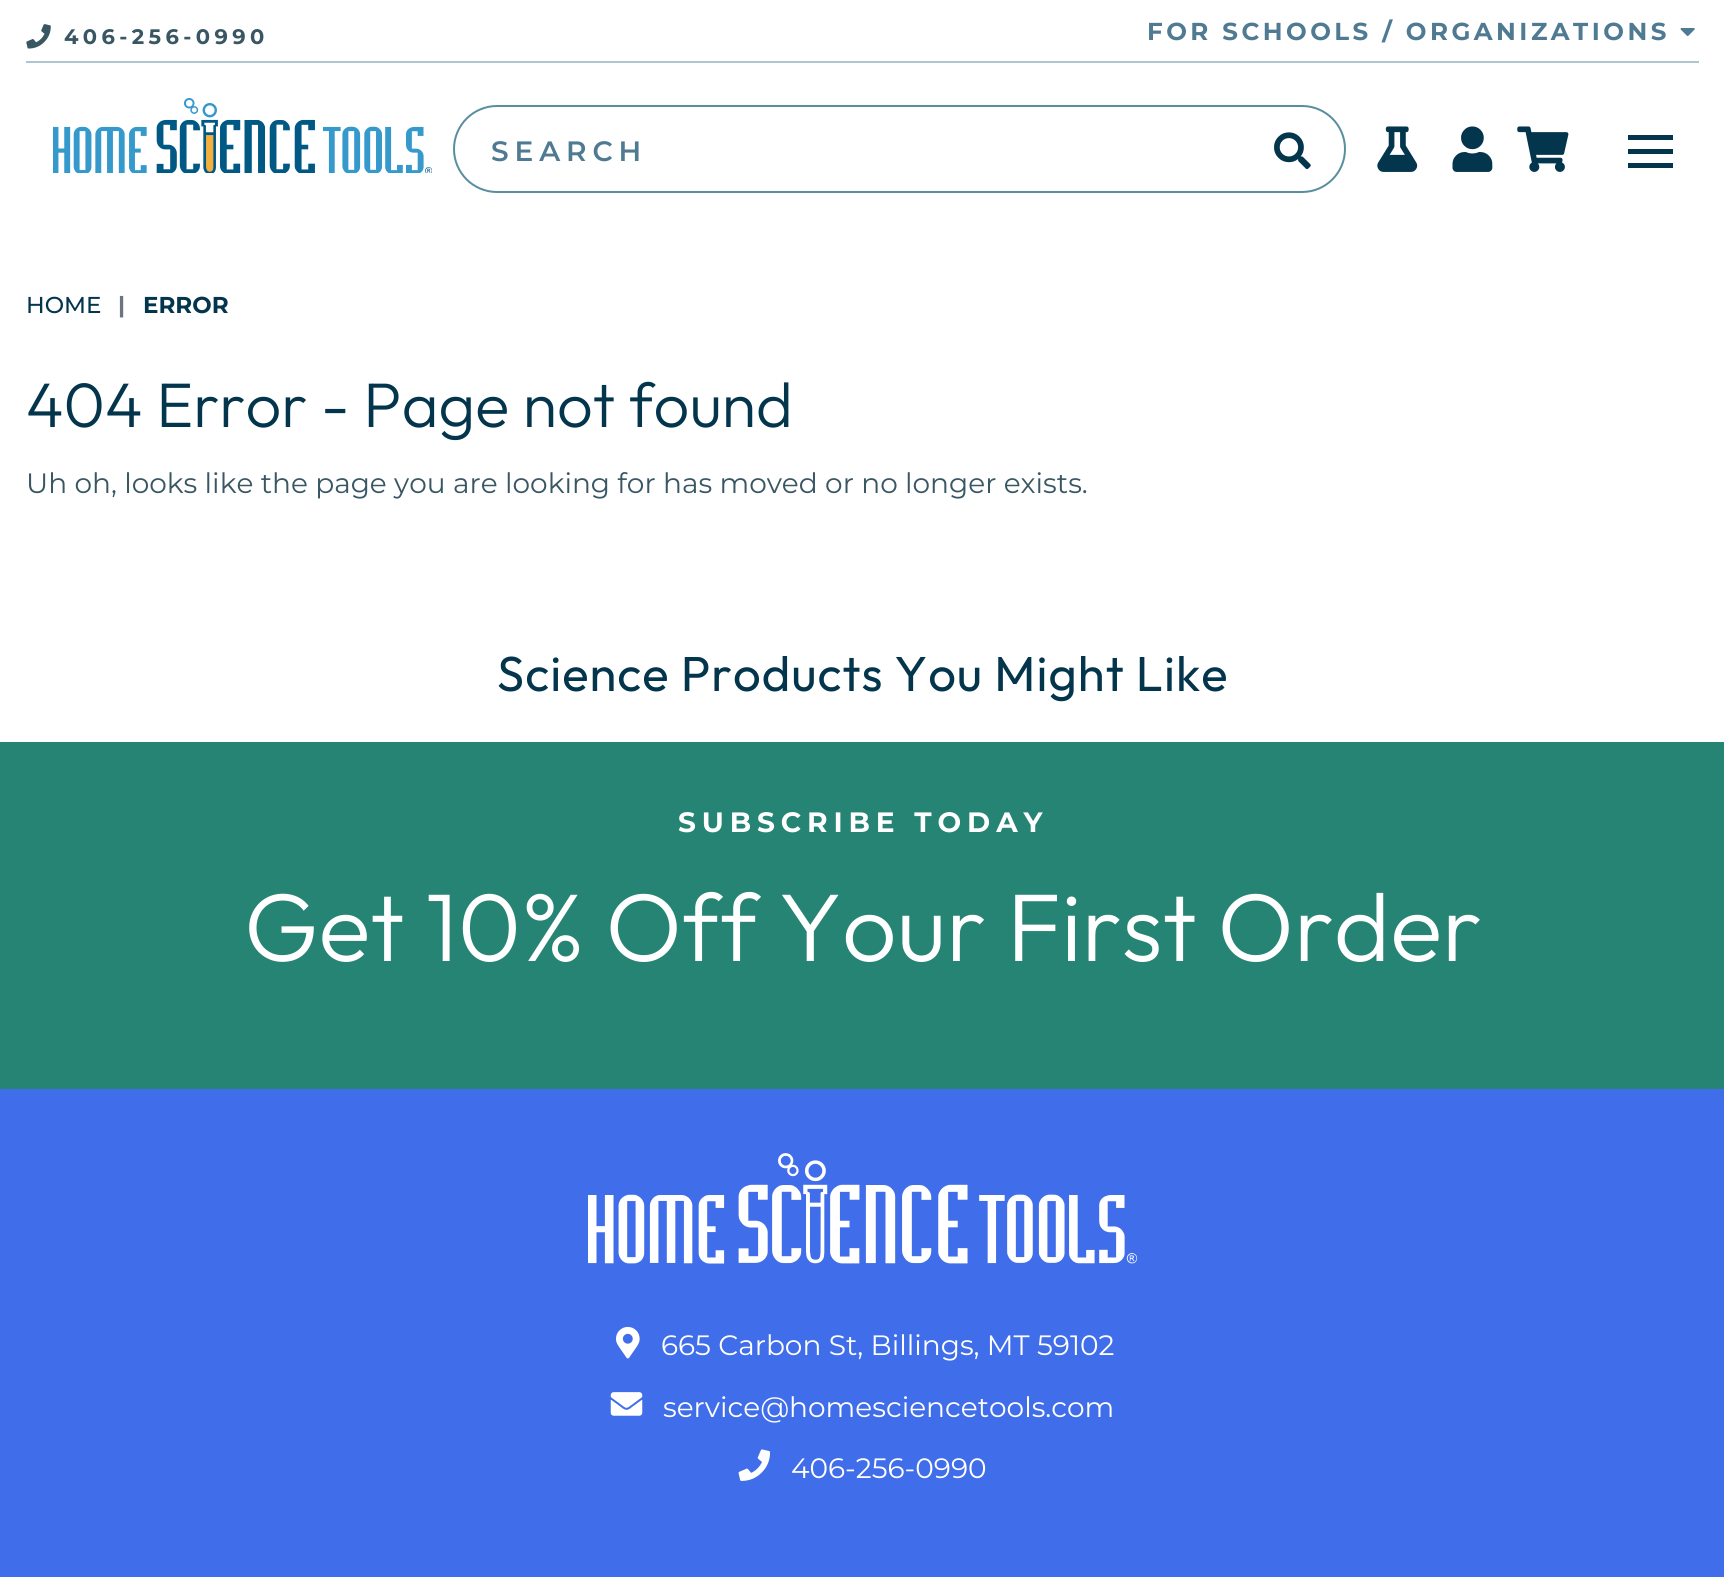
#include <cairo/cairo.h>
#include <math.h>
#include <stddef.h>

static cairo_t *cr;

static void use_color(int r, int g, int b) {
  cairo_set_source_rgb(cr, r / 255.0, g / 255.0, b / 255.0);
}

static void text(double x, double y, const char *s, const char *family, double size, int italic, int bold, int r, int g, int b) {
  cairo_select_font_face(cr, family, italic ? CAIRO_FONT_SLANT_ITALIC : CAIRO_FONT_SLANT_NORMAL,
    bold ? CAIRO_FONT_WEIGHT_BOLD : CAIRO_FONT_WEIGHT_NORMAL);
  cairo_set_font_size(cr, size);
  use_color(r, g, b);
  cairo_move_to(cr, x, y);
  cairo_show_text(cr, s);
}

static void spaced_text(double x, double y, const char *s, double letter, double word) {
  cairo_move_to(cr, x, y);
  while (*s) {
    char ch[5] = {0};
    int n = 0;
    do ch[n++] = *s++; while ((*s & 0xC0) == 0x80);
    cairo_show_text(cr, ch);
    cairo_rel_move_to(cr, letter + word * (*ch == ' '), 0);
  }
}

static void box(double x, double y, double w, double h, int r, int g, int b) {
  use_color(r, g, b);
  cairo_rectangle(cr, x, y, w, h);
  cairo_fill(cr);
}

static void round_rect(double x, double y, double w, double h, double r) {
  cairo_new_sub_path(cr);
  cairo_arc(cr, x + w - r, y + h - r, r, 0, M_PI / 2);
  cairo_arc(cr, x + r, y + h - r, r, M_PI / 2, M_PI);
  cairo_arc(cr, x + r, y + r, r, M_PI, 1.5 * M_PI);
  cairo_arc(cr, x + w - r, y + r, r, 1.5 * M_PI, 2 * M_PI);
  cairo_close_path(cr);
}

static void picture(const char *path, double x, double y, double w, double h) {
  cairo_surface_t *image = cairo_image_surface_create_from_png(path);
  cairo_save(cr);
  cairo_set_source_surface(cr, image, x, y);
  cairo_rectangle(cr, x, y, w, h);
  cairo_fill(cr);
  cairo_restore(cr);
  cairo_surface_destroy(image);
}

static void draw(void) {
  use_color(255, 255, 255);
  cairo_paint(cr);
  picture("img_01.png", 26, 24, 25, 25);
  box(26, 61, 1673, 2, 172, 199, 207);
  picture("img_02.png", 1680, 28, 15, 8);
  picture("img_03.png", 53, 98, 379, 75);
  round_rect(454, 106, 891, 86, 43);
  use_color(88, 142, 159);
  cairo_stroke(cr);
  picture("img_04.png", 1274, 132, 37, 38);
  picture("img_05.png", 1377, 126, 41, 46);
  picture("img_06.png", 1452, 126, 41, 46);
  picture("img_07.png", 1517, 126, 52, 46);
  box(1628, 149, 45, 5, 3, 53, 76);
  box(1628, 135, 45, 5, 3, 53, 76);
  box(1628, 163, 45, 5, 3, 53, 76);
  box(0, 1089, 1724, 488, 64, 109, 233);
  box(0, 742, 1724, 347, 37, 132, 115);
  picture("img_08.png", 588, 1153, 550, 111);
  picture("img_09.png", 616, 1326, 24, 33);
  picture("img_10.png", 610, 1392, 33, 24);
  picture("img_11.png", 738, 1449, 33, 32);
  cairo_select_font_face(cr, "Montserrat", CAIRO_FONT_SLANT_NORMAL, CAIRO_FONT_WEIGHT_BOLD);
  cairo_set_font_size(cr, 21);
  use_color(57, 86, 99);
  spaced_text(64, 44, "406-256-0990", 4.4, 0);
  cairo_set_font_size(cr, 24.5);
  use_color(79, 122, 146);
  spaced_text(1147, 40, "FOR SCHOOLS / ORGANIZATIONS", 3.5, 0);
  cairo_select_font_face(cr, "Montserrat SemiBold", CAIRO_FONT_SLANT_NORMAL, CAIRO_FONT_WEIGHT_NORMAL);
  cairo_set_font_size(cr, 28);
  spaced_text(491, 161, "SEARCH", 5.9, 0);
  text(26, 313, "HOME", "Montserrat Medium", 23, 0, 0, 3, 53, 76);
  text(118, 313, "|", "Montserrat", 23, 0, 1, 108, 117, 125);
  text(143, 313, "ERROR", "Montserrat", 23, 0, 1, 3, 53, 76);
  text(26, 427, "404 Error - Page not found", "Outfit Light", 63, 0, 0, 3, 53, 76);
  text(26, 493, "Uh oh, looks like the page you are looking for has moved or no longer exists.", "Montserrat", 28, 0, 0, 57, 86, 99);
  cairo_select_font_face(cr, "Outfit", CAIRO_FONT_SLANT_NORMAL, CAIRO_FONT_WEIGHT_NORMAL);
  cairo_set_font_size(cr, 49);
  use_color(3, 53, 76);
  spaced_text(497, 691, "Science Products You Might Like", 1, 0);
  cairo_select_font_face(cr, "Montserrat", CAIRO_FONT_SLANT_NORMAL, CAIRO_FONT_WEIGHT_BOLD);
  cairo_set_font_size(cr, 28);
  use_color(255, 255, 255);
  spaced_text(678, 832, "SUBSCRIBE TODAY", 5.9, 0);
  text(244, 961, "Get 10% Off Your First Order", "Outfit Light", 96.25, 0, 0, 255, 255, 255);
  text(661, 1355, "665 Carbon St, Billings, MT 59102", "Montserrat", 28, 0, 0, 255, 255, 255);
  text(663, 1417, "service@homesciencetools.com", "Montserrat", 28, 0, 0, 255, 255, 255);
  text(791, 1478, "406-256-0990", "Montserrat", 28, 0, 0, 255, 255, 255);
}

int main(void) {
  cairo_surface_t *surface = cairo_image_surface_create(CAIRO_FORMAT_RGB24, 1724, 1577);
  cr = cairo_create(surface);
  cairo_font_options_t *options = cairo_font_options_create();
  cairo_font_options_set_hint_metrics(options, CAIRO_HINT_METRICS_OFF);
  cairo_font_options_set_hint_style(options, CAIRO_HINT_STYLE_NONE);
  cairo_set_font_options(cr, options);
  cairo_set_miter_limit(cr, 4);
  draw();
  cairo_surface_write_to_png(surface, "out.png");
  cairo_font_options_destroy(options);
  cairo_destroy(cr);
  cairo_surface_destroy(surface);
  return 0;
}
